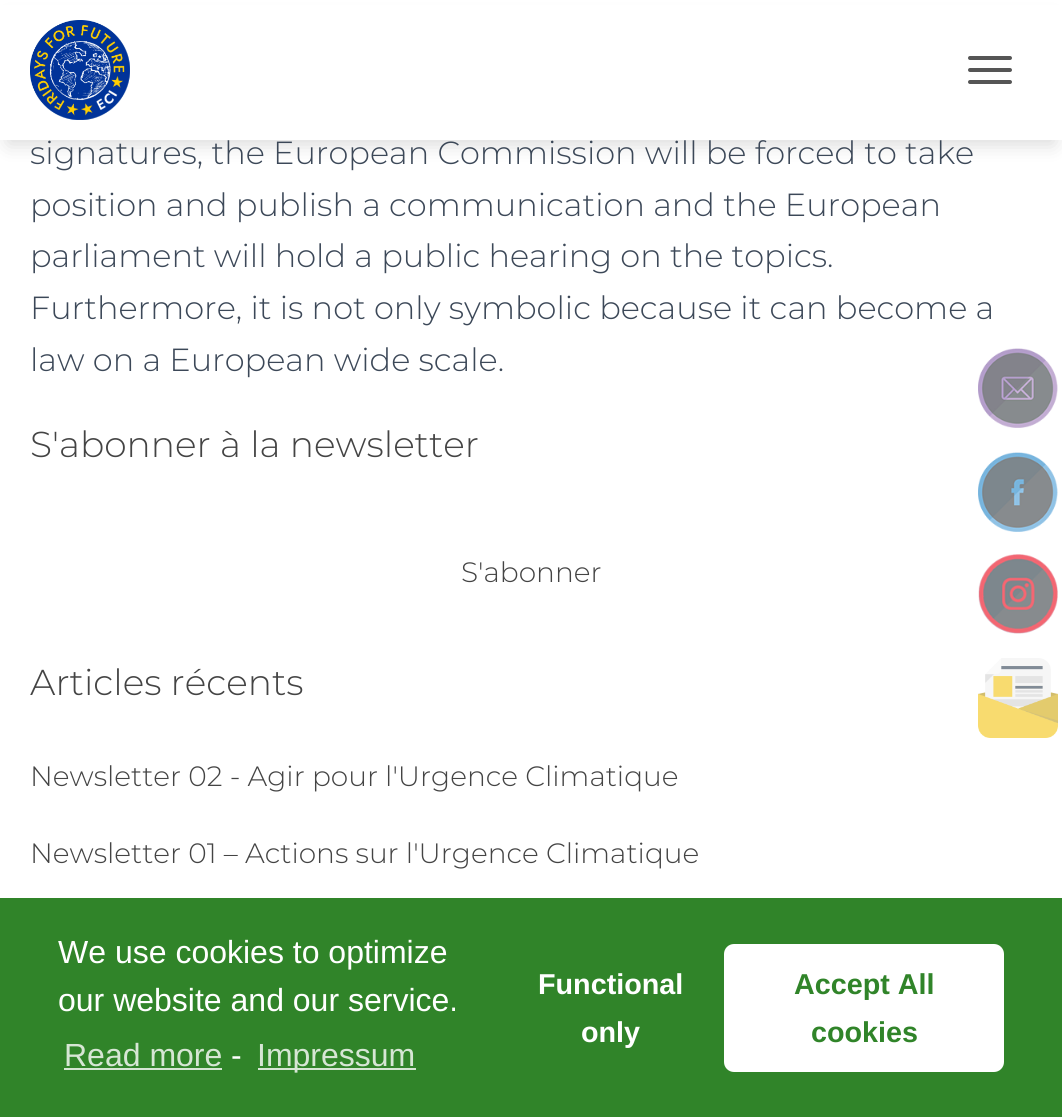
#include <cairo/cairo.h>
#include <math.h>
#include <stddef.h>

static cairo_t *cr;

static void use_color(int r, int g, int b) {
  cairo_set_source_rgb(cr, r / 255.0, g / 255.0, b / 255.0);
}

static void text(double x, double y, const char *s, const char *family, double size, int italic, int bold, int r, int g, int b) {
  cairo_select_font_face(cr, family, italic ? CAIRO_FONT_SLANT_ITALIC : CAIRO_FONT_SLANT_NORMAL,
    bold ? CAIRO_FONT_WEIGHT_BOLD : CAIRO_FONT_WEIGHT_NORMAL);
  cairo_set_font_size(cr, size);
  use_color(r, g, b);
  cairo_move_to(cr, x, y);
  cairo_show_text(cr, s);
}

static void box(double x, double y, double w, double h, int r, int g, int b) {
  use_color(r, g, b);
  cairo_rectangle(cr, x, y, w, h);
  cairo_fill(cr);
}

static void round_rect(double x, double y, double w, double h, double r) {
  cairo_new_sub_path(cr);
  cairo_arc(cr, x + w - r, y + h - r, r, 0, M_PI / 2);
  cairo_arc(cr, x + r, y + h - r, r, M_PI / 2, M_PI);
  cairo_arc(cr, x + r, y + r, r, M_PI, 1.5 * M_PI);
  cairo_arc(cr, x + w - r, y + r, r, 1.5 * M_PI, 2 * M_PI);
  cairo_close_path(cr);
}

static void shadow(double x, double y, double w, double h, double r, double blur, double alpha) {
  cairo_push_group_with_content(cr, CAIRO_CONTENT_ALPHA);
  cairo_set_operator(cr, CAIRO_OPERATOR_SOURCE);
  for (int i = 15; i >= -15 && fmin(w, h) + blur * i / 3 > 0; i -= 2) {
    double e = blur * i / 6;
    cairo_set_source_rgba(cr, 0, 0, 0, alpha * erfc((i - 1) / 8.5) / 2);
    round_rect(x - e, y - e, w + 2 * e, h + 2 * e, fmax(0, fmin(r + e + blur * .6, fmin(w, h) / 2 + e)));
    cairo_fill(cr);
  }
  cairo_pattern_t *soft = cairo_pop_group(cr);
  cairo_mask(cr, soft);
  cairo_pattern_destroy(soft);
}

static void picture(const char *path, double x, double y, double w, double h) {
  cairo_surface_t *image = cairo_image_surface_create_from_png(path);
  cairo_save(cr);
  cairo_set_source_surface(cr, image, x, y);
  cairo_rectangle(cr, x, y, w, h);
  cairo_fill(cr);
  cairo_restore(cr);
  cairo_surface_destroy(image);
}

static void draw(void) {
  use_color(255, 255, 255);
  cairo_paint(cr);
  use_color(0, 0, 0);
  shadow(8, 20, 1046, 124, 0, 10, 0.15);
  box(0, 5, 1062, 135, 255, 255, 255);
  picture("img_01.png", 30, 20, 100, 100);
  use_color(85, 85, 85);
  round_rect(968, 56, 44, 4, 2);
  cairo_fill(cr);
  round_rect(968, 68, 44, 4, 2);
  cairo_fill(cr);
  round_rect(968, 80, 44, 4, 2);
  cairo_fill(cr);
  picture("img_02.png", 978, 348, 80, 80);
  picture("img_03.png", 978, 452, 80, 80);
  picture("img_04.png", 978, 554, 80, 80);
  picture("img_05.png", 978, 658, 80, 80);
  box(0, 898, 1062, 219, 48, 132, 41);
  box(64, 1068, 158, 2, 214, 230, 212);
  box(258, 1068, 158, 2, 214, 230, 212);
  use_color(255, 255, 255);
  round_rect(726, 946, 276, 124, 8);
  cairo_fill_preserve(cr);
  cairo_set_line_width(cr, 4);
  cairo_stroke(cr);
  text(30, 164, "signatures, the European Commission will be forced to take", "Montserrat Light", 32, 0, 0, 60, 72, 88);
  text(30, 216, "position and publish a communication and the European", "Montserrat Light", 32, 0, 0, 60, 72, 88);
  text(30, 267, "parliament will hold a public hearing on the topics.", "Montserrat Light", 32, 0, 0, 60, 72, 88);
  text(30, 319, "Furthermore, it is not only symbolic because it can become a", "Montserrat Light", 32, 0, 0, 60, 72, 88);
  text(30, 371, "law on a European wide scale.", "Montserrat Light", 32, 0, 0, 60, 72, 88);
  text(30, 457, "S'abonner à la newsletter", "Montserrat Light", 36, 0, 0, 68, 68, 68);
  text(461, 582, "S'abonner", "Montserrat Light", 28, 0, 0, 68, 68, 68);
  text(30, 695, "Articles récents", "Montserrat Light", 36, 0, 0, 68, 68, 68);
  text(30, 786, "Newsletter 02 - Agir pour l'Urgence Climatique", "Montserrat Light", 28, 0, 0, 68, 68, 68);
  text(30, 863, "Newsletter 01 – Actions sur l'Urgence Climatique", "Montserrat Light", 28, 0, 0, 68, 68, 68);
  text(58, 963, "We use cookies to optimize", "Liberation Sans", 32, 0, 0, 255, 255, 255);
  text(58, 1011, "our website and our service.", "Liberation Sans", 32, 0, 0, 255, 255, 255);
  text(64, 1066, "Read more", "Liberation Sans", 32, 0, 0, 214, 230, 212);
  text(231, 1066, "-", "Liberation Sans", 32, 0, 0, 255, 255, 255);
  text(257, 1066, "Impressum", "Liberation Sans", 32, 0, 0, 214, 230, 212);
  text(538, 994, "Functional", "Liberation Sans", 28.75, 0, 1, 255, 255, 255);
  text(581, 1042, "only", "Liberation Sans", 28.75, 0, 1, 255, 255, 255);
  text(794, 994, "Accept All", "Liberation Sans", 28.75, 0, 1, 48, 132, 41);
  text(811, 1042, "cookies", "Liberation Sans", 28.75, 0, 1, 48, 132, 41);
}

int main(void) {
  cairo_surface_t *surface = cairo_image_surface_create(CAIRO_FORMAT_RGB24, 1062, 1117);
  cr = cairo_create(surface);
  cairo_font_options_t *options = cairo_font_options_create();
  cairo_font_options_set_hint_metrics(options, CAIRO_HINT_METRICS_OFF);
  cairo_font_options_set_hint_style(options, CAIRO_HINT_STYLE_NONE);
  cairo_set_font_options(cr, options);
  cairo_set_miter_limit(cr, 4);
  draw();
  cairo_surface_write_to_png(surface, "out.png");
  cairo_font_options_destroy(options);
  cairo_destroy(cr);
  cairo_surface_destroy(surface);
  return 0;
}
